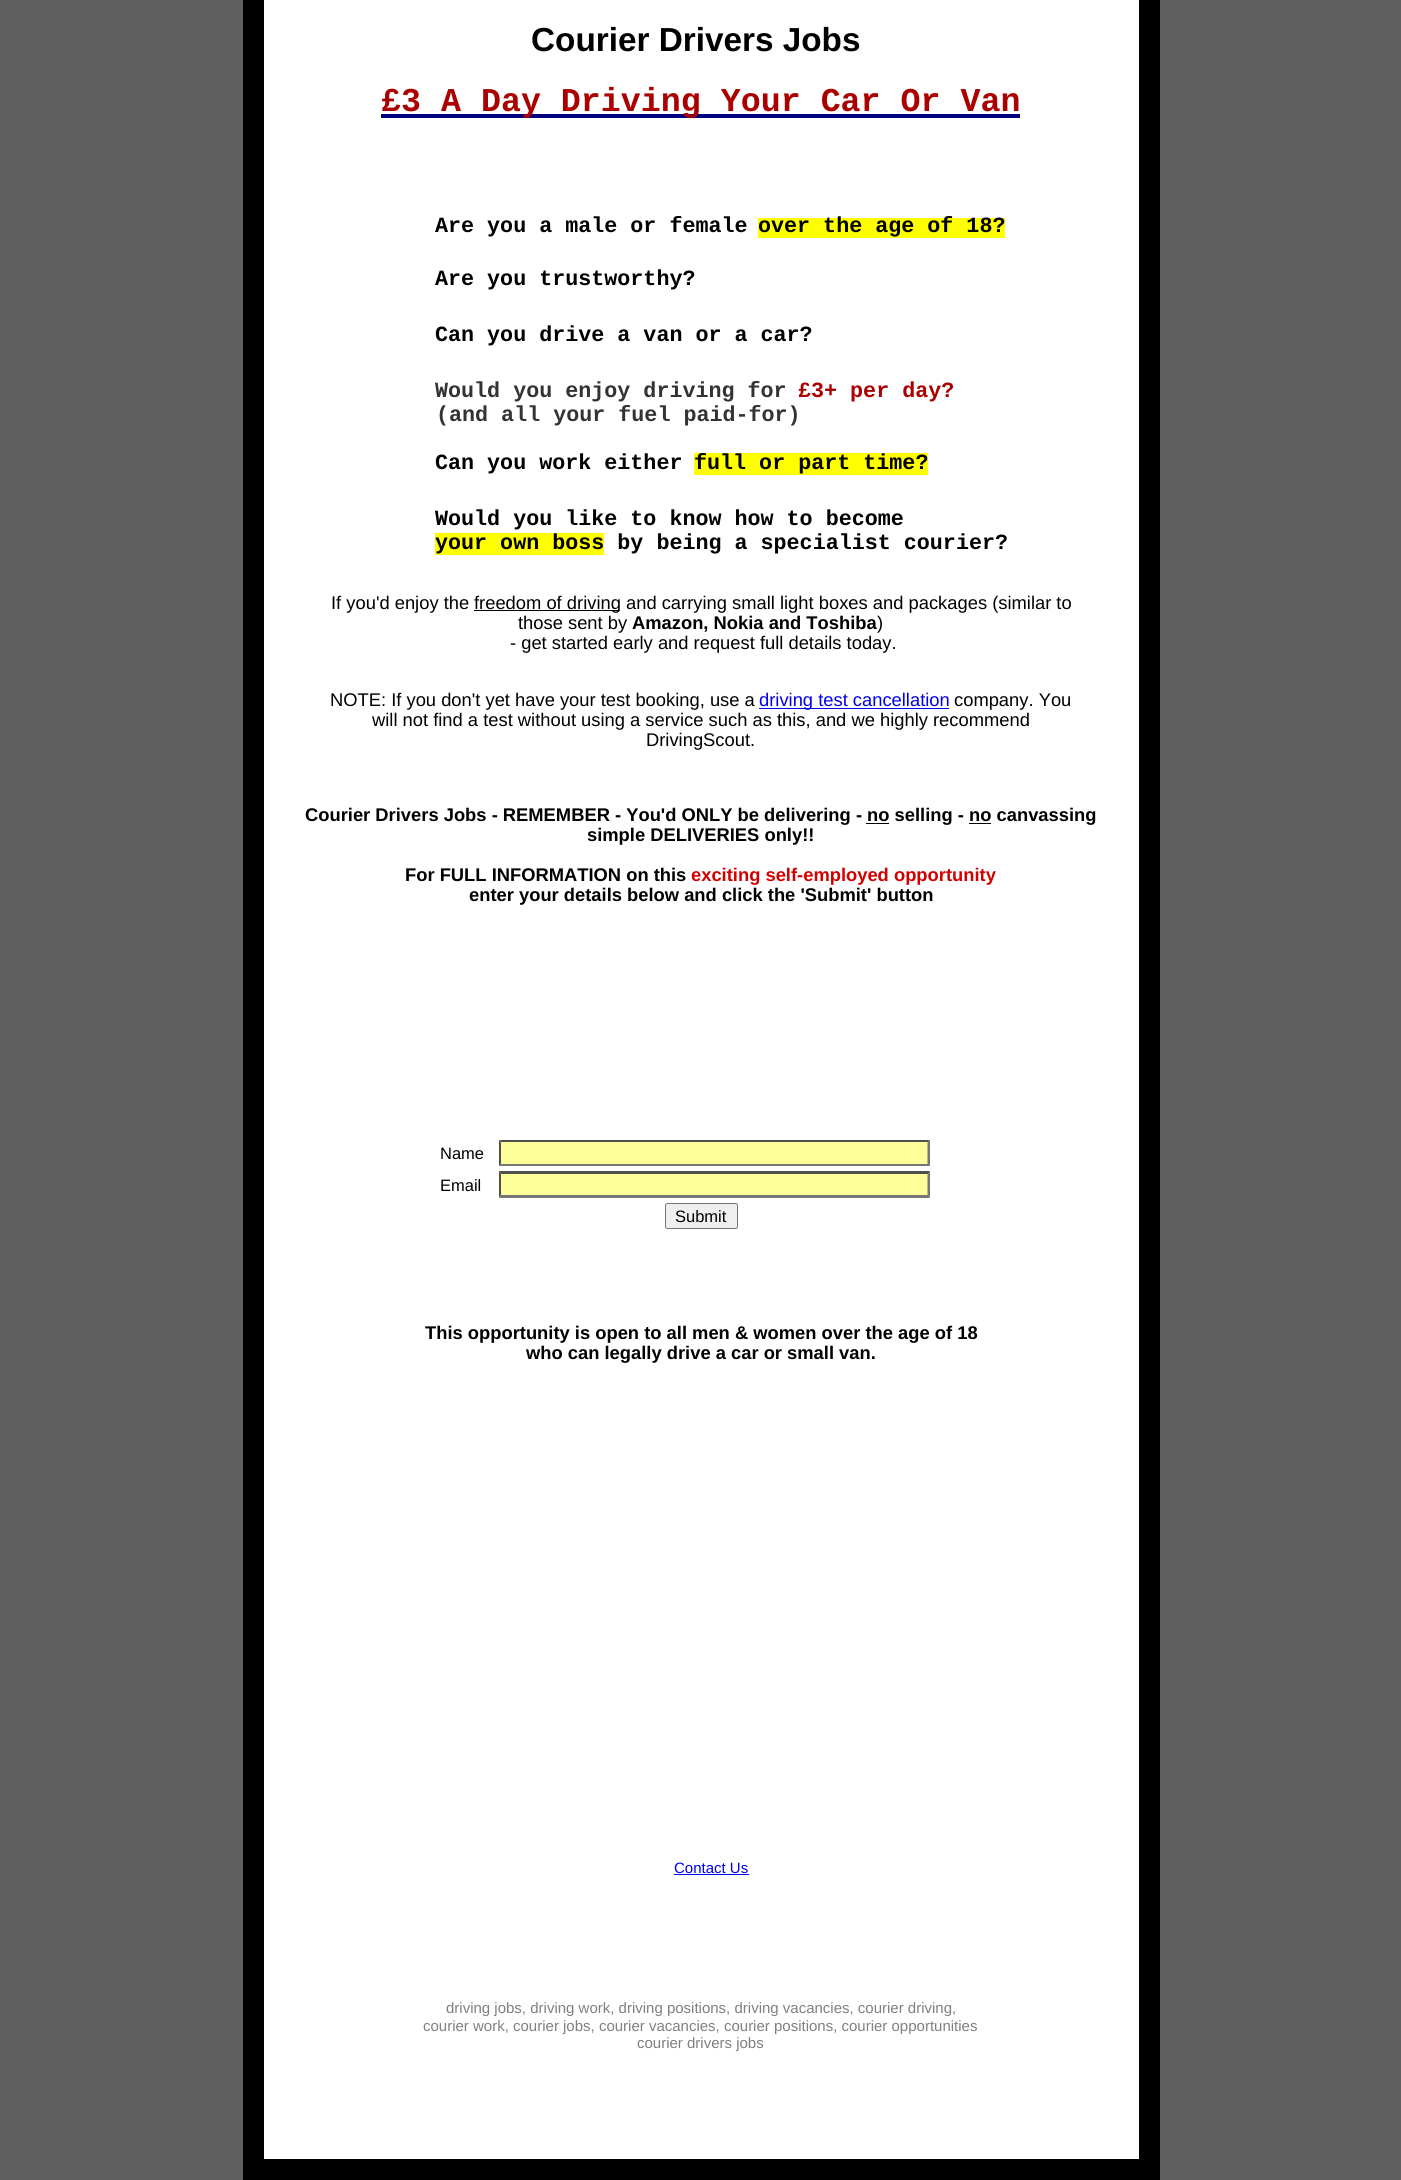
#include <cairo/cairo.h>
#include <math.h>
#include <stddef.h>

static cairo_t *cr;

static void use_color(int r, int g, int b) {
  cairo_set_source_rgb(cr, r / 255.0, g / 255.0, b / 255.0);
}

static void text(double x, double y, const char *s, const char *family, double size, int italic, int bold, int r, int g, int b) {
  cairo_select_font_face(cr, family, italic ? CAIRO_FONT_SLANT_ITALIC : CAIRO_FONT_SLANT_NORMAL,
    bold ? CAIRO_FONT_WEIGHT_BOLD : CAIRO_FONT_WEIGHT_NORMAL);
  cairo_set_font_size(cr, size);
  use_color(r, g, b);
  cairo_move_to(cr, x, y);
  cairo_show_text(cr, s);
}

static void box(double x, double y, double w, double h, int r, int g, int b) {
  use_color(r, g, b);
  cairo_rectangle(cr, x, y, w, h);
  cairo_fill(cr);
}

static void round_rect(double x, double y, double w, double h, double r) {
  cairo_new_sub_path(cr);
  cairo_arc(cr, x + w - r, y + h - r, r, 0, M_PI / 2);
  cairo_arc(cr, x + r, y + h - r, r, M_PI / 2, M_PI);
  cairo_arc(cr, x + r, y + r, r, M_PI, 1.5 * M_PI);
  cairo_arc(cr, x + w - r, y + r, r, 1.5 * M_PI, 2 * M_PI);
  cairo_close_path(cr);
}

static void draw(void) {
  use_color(95, 95, 95);
  cairo_paint(cr);
  box(243, 0, 21, 2159, 0, 0, 0);
  box(264, 0, 875, 2159, 255, 255, 255);
  box(381, 114, 639, 4, 0, 0, 128);
  box(758, 218, 247, 20, 255, 255, 0);
  box(694, 453, 234, 22, 255, 255, 0);
  box(435, 533, 169, 22, 255, 255, 0);
  box(474, 610, 146, 1, 0, 0, 0);
  box(759, 708, 190, 1, 0, 0, 238);
  box(866, 823, 23, 1, 0, 0, 0);
  box(969, 823, 22, 1, 0, 0, 0);
  box(499, 1140, 431, 26, 255, 255, 153);
  use_color(79, 79, 79);
  cairo_new_path(cr);
  cairo_move_to(cr, 499, 1140);
  cairo_line_to(cr, 930, 1140);
  cairo_line_to(cr, 928, 1142);
  cairo_line_to(cr, 501, 1142);
  cairo_close_path(cr);
  cairo_fill(cr);
  use_color(118, 118, 118);
  cairo_new_path(cr);
  cairo_move_to(cr, 930, 1140);
  cairo_line_to(cr, 930, 1166);
  cairo_line_to(cr, 927.5, 1164);
  cairo_line_to(cr, 927.5, 1142.5);
  cairo_close_path(cr);
  cairo_fill(cr);
  cairo_new_path(cr);
  cairo_move_to(cr, 930, 1166);
  cairo_line_to(cr, 499, 1166);
  cairo_line_to(cr, 501, 1164);
  cairo_line_to(cr, 928, 1164);
  cairo_close_path(cr);
  cairo_fill(cr);
  use_color(79, 79, 79);
  cairo_new_path(cr);
  cairo_move_to(cr, 499, 1166);
  cairo_line_to(cr, 499, 1140);
  cairo_line_to(cr, 501, 1142.5);
  cairo_line_to(cr, 501, 1164);
  cairo_close_path(cr);
  cairo_fill(cr);
  box(499, 1171, 431, 27, 255, 255, 153);
  use_color(79, 79, 79);
  cairo_new_path(cr);
  cairo_move_to(cr, 499, 1171);
  cairo_line_to(cr, 930, 1171);
  cairo_line_to(cr, 928, 1174);
  cairo_line_to(cr, 501, 1174);
  cairo_close_path(cr);
  cairo_fill(cr);
  use_color(118, 118, 118);
  cairo_new_path(cr);
  cairo_move_to(cr, 930, 1171);
  cairo_line_to(cr, 930, 1197.5);
  cairo_line_to(cr, 927.5, 1195);
  cairo_line_to(cr, 927.5, 1174);
  cairo_close_path(cr);
  cairo_fill(cr);
  cairo_new_path(cr);
  cairo_move_to(cr, 930, 1198);
  cairo_line_to(cr, 499, 1198);
  cairo_line_to(cr, 501, 1195);
  cairo_line_to(cr, 928, 1195);
  cairo_close_path(cr);
  cairo_fill(cr);
  use_color(79, 79, 79);
  cairo_new_path(cr);
  cairo_move_to(cr, 499, 1197.5);
  cairo_line_to(cr, 499, 1171);
  cairo_line_to(cr, 501, 1174);
  cairo_line_to(cr, 501, 1195);
  cairo_close_path(cr);
  cairo_fill(cr);
  use_color(239, 239, 239);
  round_rect(665.5, 1203.5, 72, 25, 2);
  cairo_fill_preserve(cr);
  use_color(118, 118, 118);
  cairo_set_line_width(cr, 1);
  cairo_stroke(cr);
  box(674, 1874, 75, 1, 0, 0, 238);
  box(1139, 0, 21, 2159, 0, 0, 0);
  box(243, 2159, 917, 21, 0, 0, 0);
  text(531, 51, "Courier Drivers Jobs", "Liberation Sans", 33.3, 0, 1, 0, 0, 0);
  text(381, 111, "£3 A Day Driving Your Car Or Van", "Liberation Mono", 33.3, 0, 1, 170, 0, 0);
  text(435, 232, "Are you a male or female", "Liberation Mono", 21.7, 0, 1, 0, 0, 0);
  text(758, 232, "over the age of 18?", "Liberation Mono", 21.7, 0, 1, 0, 0, 0);
  text(435, 285, "Are you trustworthy?", "Liberation Mono", 21.7, 0, 1, 0, 0, 0);
  text(435, 341, "Can you drive a van or a car?", "Liberation Mono", 21.7, 0, 1, 0, 0, 0);
  text(435, 397, "Would you enjoy driving for", "Liberation Mono", 21.7, 0, 1, 51, 51, 51);
  text(798, 397, "£3+ per day?", "Liberation Mono", 21.7, 0, 1, 170, 0, 0);
  text(436, 421, "(and all your fuel paid-for)", "Liberation Mono", 21.7, 0, 1, 51, 51, 51);
  text(435, 469, "Can you work either", "Liberation Mono", 21.7, 0, 1, 0, 0, 0);
  text(694, 469, "full or part time?", "Liberation Mono", 21.7, 0, 1, 0, 0, 0);
  text(435, 525, "Would you like to know how to become", "Liberation Mono", 21.7, 0, 1, 0, 0, 0);
  text(435, 549, "your own boss by being a specialist courier?", "Liberation Mono", 21.7, 0, 1, 0, 0, 0);
  text(331, 609, "If you'd enjoy the", "Liberation Sans", 18.35, 0, 0, 0, 0, 0);
  text(474, 609, "freedom of driving and carrying small light boxes and packages (similar to", "Liberation Sans", 18.35, 0, 0, 0, 0, 0);
  text(518, 629, "those sent by", "Liberation Sans", 18.35, 0, 0, 0, 0, 0);
  text(632, 629, "Amazon, Nokia and Toshiba", "Liberation Sans", 18.35, 0, 1, 0, 0, 0);
  text(877, 629, ")", "Liberation Sans", 18.35, 0, 0, 0, 0, 0);
  text(510, 649, "- get started early and request full details today.", "Liberation Sans", 18.35, 0, 0, 0, 0, 0);
  text(330, 706, "NOTE: If you don't yet have your test booking, use a", "Liberation Sans", 18.35, 0, 0, 0, 0, 0);
  text(759, 706, "driving test cancellation", "Liberation Sans", 18.35, 0, 0, 0, 0, 238);
  text(954, 706, "company. You", "Liberation Sans", 18.35, 0, 0, 0, 0, 0);
  text(372, 726, "will not find a test without using a service such as this, and we highly recommend", "Liberation Sans", 18.35, 0, 0, 0, 0, 0);
  text(646, 746, "DrivingScout.", "Liberation Sans", 18.35, 0, 0, 0, 0, 0);
  text(305, 821, "Courier Drivers Jobs - REMEMBER - You'd ONLY be delivering - no selling - no canvassing", "Liberation Sans", 18.35, 0, 1, 0, 0, 0);
  text(587, 841, "simple DELIVERIES only!!", "Liberation Sans", 18.35, 0, 1, 0, 0, 0);
  text(405, 881, "For FULL INFORMATION on this", "Liberation Sans", 18.35, 0, 1, 0, 0, 0);
  text(691, 881, "exciting self-employed opportunity", "Liberation Sans", 18.35, 0, 1, 212, 0, 0);
  text(469, 901, "enter your details below and click the 'Submit' button", "Liberation Sans", 18.35, 0, 1, 0, 0, 0);
  text(440, 1159, "Name", "Liberation Sans", 16.5, 0, 0, 0, 0, 0);
  text(440, 1191, "Email", "Liberation Sans", 16.5, 0, 0, 0, 0, 0);
  text(675, 1222, "Submit", "Liberation Sans", 16.5, 0, 0, 0, 0, 0);
  text(425, 1339, "This opportunity is open to all men & women over the age of 18", "Liberation Sans", 18.35, 0, 1, 0, 0, 0);
  text(526, 1359, "who can legally drive a car or small van.", "Liberation Sans", 18.35, 0, 1, 0, 0, 0);
  text(674, 1873, "Contact Us", "Liberation Sans", 15, 0, 0, 0, 0, 238);
  text(446, 2013, "driving jobs, driving work, driving positions, driving vacancies, courier driving,", "Liberation Sans", 15, 0, 0, 128, 128, 128);
  text(423, 2031, "courier work, courier jobs, courier vacancies, courier positions, courier opportunities", "Liberation Sans", 15, 0, 0, 128, 128, 128);
  text(637, 2048, "courier drivers jobs", "Liberation Sans", 15, 0, 0, 128, 128, 128);
}

int main(void) {
  cairo_surface_t *surface = cairo_image_surface_create(CAIRO_FORMAT_RGB24, 1401, 2180);
  cr = cairo_create(surface);
  cairo_font_options_t *options = cairo_font_options_create();
  cairo_font_options_set_hint_metrics(options, CAIRO_HINT_METRICS_OFF);
  cairo_font_options_set_hint_style(options, CAIRO_HINT_STYLE_NONE);
  cairo_set_font_options(cr, options);
  cairo_set_miter_limit(cr, 4);
  draw();
  cairo_surface_write_to_png(surface, "out.png");
  cairo_font_options_destroy(options);
  cairo_destroy(cr);
  cairo_surface_destroy(surface);
  return 0;
}
